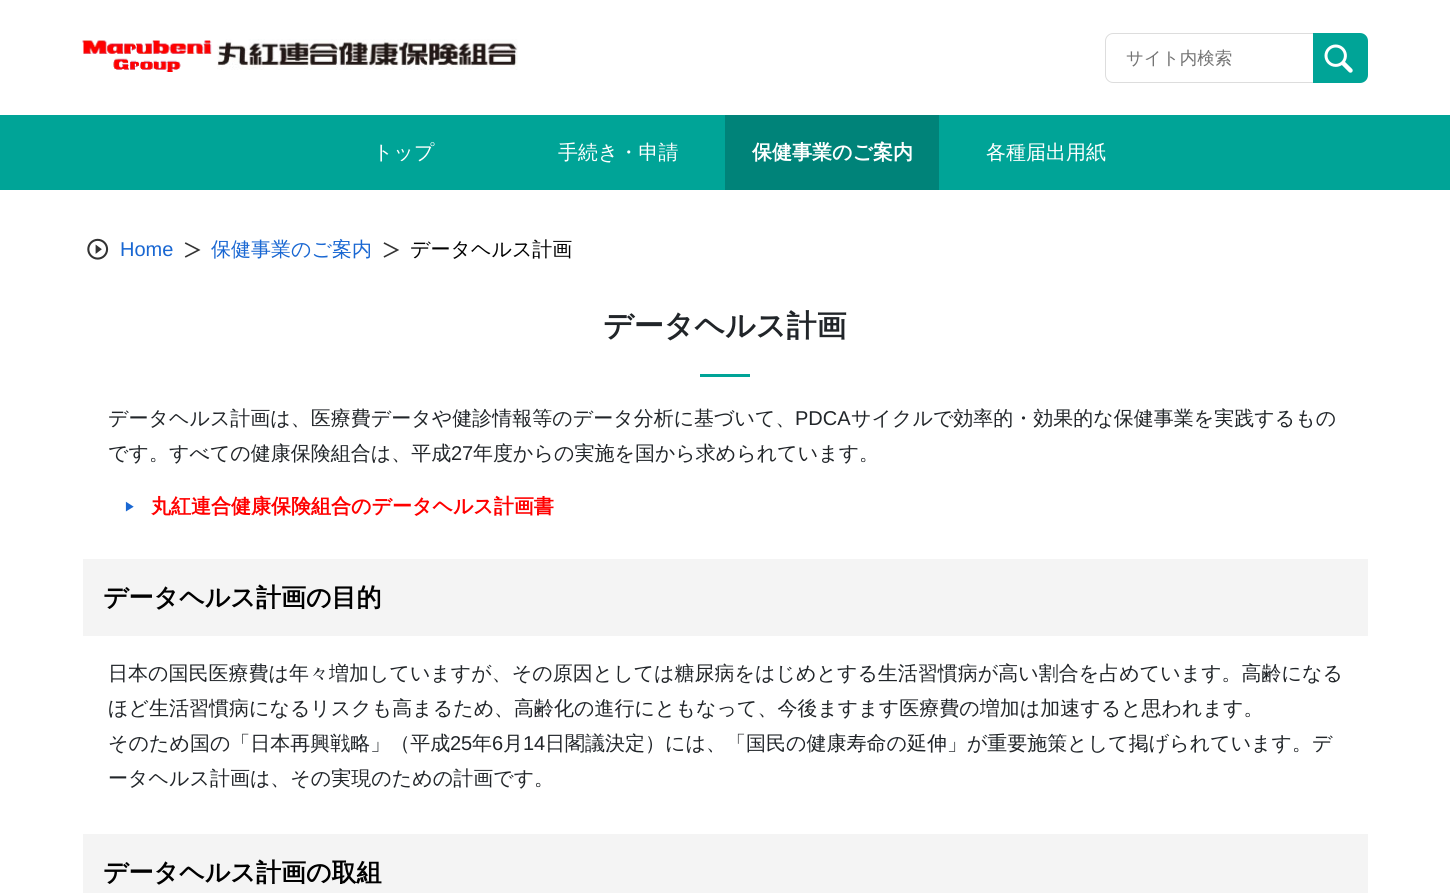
#include <cairo/cairo.h>
#include <math.h>
#include <stddef.h>

static cairo_t *cr;

static void use_color(int r, int g, int b) {
  cairo_set_source_rgb(cr, r / 255.0, g / 255.0, b / 255.0);
}

static void text(double x, double y, const char *s, const char *family, double size, int italic, int bold, int r, int g, int b) {
  cairo_select_font_face(cr, family, italic ? CAIRO_FONT_SLANT_ITALIC : CAIRO_FONT_SLANT_NORMAL,
    bold ? CAIRO_FONT_WEIGHT_BOLD : CAIRO_FONT_WEIGHT_NORMAL);
  cairo_set_font_size(cr, size);
  use_color(r, g, b);
  cairo_move_to(cr, x, y);
  cairo_show_text(cr, s);
}

static void box(double x, double y, double w, double h, int r, int g, int b) {
  use_color(r, g, b);
  cairo_rectangle(cr, x, y, w, h);
  cairo_fill(cr);
}

static void picture(const char *path, double x, double y, double w, double h) {
  cairo_surface_t *image = cairo_image_surface_create_from_png(path);
  cairo_save(cr);
  cairo_set_source_surface(cr, image, x, y);
  cairo_rectangle(cr, x, y, w, h);
  cairo_fill(cr);
  cairo_restore(cr);
  cairo_surface_destroy(image);
}

static void draw(void) {
  use_color(255, 255, 255);
  cairo_paint(cr);
  picture("img_01.png", 82, 39, 436, 33);
  cairo_new_path(cr);
  cairo_move_to(cr, 1113, 33.5);
  cairo_line_to(cr, 1313.5, 33.5);
  cairo_line_to(cr, 1313.5, 82.5);
  cairo_line_to(cr, 1113, 82.5);
  cairo_curve_to(cr, 1109, 82.5, 1105.5, 79, 1105.5, 75);
  cairo_line_to(cr, 1105.5, 41);
  cairo_curve_to(cr, 1105.5, 37, 1109, 33.5, 1113, 33.5);
  cairo_close_path(cr);
  use_color(221, 221, 221);
  cairo_set_line_width(cr, 1);
  cairo_stroke(cr);
  use_color(0, 164, 151);
  cairo_new_path(cr);
  cairo_move_to(cr, 1313, 33);
  cairo_line_to(cr, 1360, 33);
  cairo_curve_to(cr, 1364.5, 33, 1368, 36.5, 1368, 41);
  cairo_line_to(cr, 1368, 75);
  cairo_curve_to(cr, 1368, 79.5, 1364.5, 83, 1360, 83);
  cairo_line_to(cr, 1313, 83);
  cairo_close_path(cr);
  cairo_fill(cr);
  picture("img_02.png", 1324, 44, 29, 29);
  box(0, 115, 1450, 75, 0, 164, 151);
  box(725, 115, 214, 75, 0, 131, 121);
  picture("img_03.png", 87, 238, 22, 22);
  picture("img_04.png", 184, 242, 17, 16);
  picture("img_05.png", 383, 242, 17, 16);
  box(700, 374, 50, 3, 0, 164, 151);
  box(83, 559, 1285, 77, 244, 244, 244);
  box(83, 834, 1285, 59, 244, 244, 244);
  text(1126, 64, "サイト内検索", "WenQuanYi Zen Hei Medium", 17.5, 0, 0, 115, 115, 115);
  text(373, 159, "トップ", "WenQuanYi Zen Hei Medium", 20, 0, 0, 255, 255, 255);
  text(558, 159, "手続き・申請", "WenQuanYi Zen Hei Medium", 20, 0, 0, 255, 255, 255);
  text(752, 159, "保健事業のご案内", "WenQuanYi Zen Hei", 20, 0, 1, 255, 255, 255);
  text(986, 159, "各種届出用紙", "WenQuanYi Zen Hei Medium", 20, 0, 0, 255, 255, 255);
  text(120, 256, "Home", "Liberation Sans", 20, 0, 0, 25, 103, 210);
  text(211, 256, "保健事業のご案内", "WenQuanYi Zen Hei Medium", 20, 0, 0, 25, 103, 210);
  text(410, 256, "データヘルス計画", "WenQuanYi Zen Hei Medium", 20, 0, 0, 0, 0, 0);
  text(603, 336, "データヘルス計画", "WenQuanYi Zen Hei", 30, 0, 1, 33, 37, 41);
  text(108, 425, "データヘルス計画は、医療費データや健診情報等のデータ分析に基づいて、", "WenQuanYi Zen Hei Medium", 20, 0, 0, 33, 37, 41);
  text(795, 425, "PDCA", "Liberation Sans", 20, 0, 0, 33, 37, 41);
  text(851, 425, "サイクルで効率的・効果的な保健事業を実践するもの", "WenQuanYi Zen Hei Medium", 20, 0, 0, 33, 37, 41);
  text(108, 460, "です。すべての健康保険組合は、平成", "WenQuanYi Zen Hei Medium", 20, 0, 0, 33, 37, 41);
  text(451, 460, "27", "Liberation Sans", 20, 0, 0, 33, 37, 41);
  text(473, 460, "年度からの実施を国から求められています。", "WenQuanYi Zen Hei Medium", 20, 0, 0, 33, 37, 41);
  text(124, 511, "▶", "WenQuanYi Zen Hei Medium", 12, 0, 0, 25, 103, 210);
  text(151, 513, "丸紅連合健康保険組合のデータヘルス計画書", "WenQuanYi Zen Hei", 20, 0, 1, 255, 0, 0);
  text(103, 606, "データヘルス計画の目的", "WenQuanYi Zen Hei", 25, 0, 1, 0, 0, 0);
  text(108, 680, "日本の国民医療費は年々増加していますが、その原因としては糖尿病をはじめとする生活習慣病が高い割合を占めています。高齢になる", "WenQuanYi Zen Hei Medium", 20, 0, 0, 33, 37, 41);
  text(108, 715, "ほど生活習慣病になるリスクも高まるため、高齢化の進行にともなって、今後ますます医療費の増加は加速すると思われます。", "WenQuanYi Zen Hei Medium", 20, 0, 0, 33, 37, 41);
  text(108, 750, "そのため国の「日本再興戦略」（平成", "WenQuanYi Zen Hei Medium", 20, 0, 0, 33, 37, 41);
  text(450, 750, "25", "Liberation Sans", 20, 0, 0, 33, 37, 41);
  text(472, 750, "年", "WenQuanYi Zen Hei Medium", 20, 0, 0, 33, 37, 41);
  text(492, 750, "6", "Liberation Sans", 20, 0, 0, 33, 37, 41);
  text(503, 750, "月", "WenQuanYi Zen Hei Medium", 20, 0, 0, 33, 37, 41);
  text(523, 750, "14", "Liberation Sans", 20, 0, 0, 33, 37, 41);
  text(545, 750, "日閣議決定）には、「国民の健康寿命の延伸」が重要施策として掲げられています。デ", "WenQuanYi Zen Hei Medium", 20, 0, 0, 33, 37, 41);
  text(108, 785, "ータヘルス計画は、その実現のための計画です。", "WenQuanYi Zen Hei Medium", 20, 0, 0, 33, 37, 41);
  text(103, 881, "データヘルス計画の取組", "WenQuanYi Zen Hei", 25, 0, 1, 0, 0, 0);
}

int main(void) {
  cairo_surface_t *surface = cairo_image_surface_create(CAIRO_FORMAT_RGB24, 1450, 893);
  cr = cairo_create(surface);
  cairo_font_options_t *options = cairo_font_options_create();
  cairo_font_options_set_hint_metrics(options, CAIRO_HINT_METRICS_OFF);
  cairo_font_options_set_hint_style(options, CAIRO_HINT_STYLE_NONE);
  cairo_set_font_options(cr, options);
  cairo_set_miter_limit(cr, 4);
  draw();
  cairo_surface_write_to_png(surface, "out.png");
  cairo_font_options_destroy(options);
  cairo_destroy(cr);
  cairo_surface_destroy(surface);
  return 0;
}
